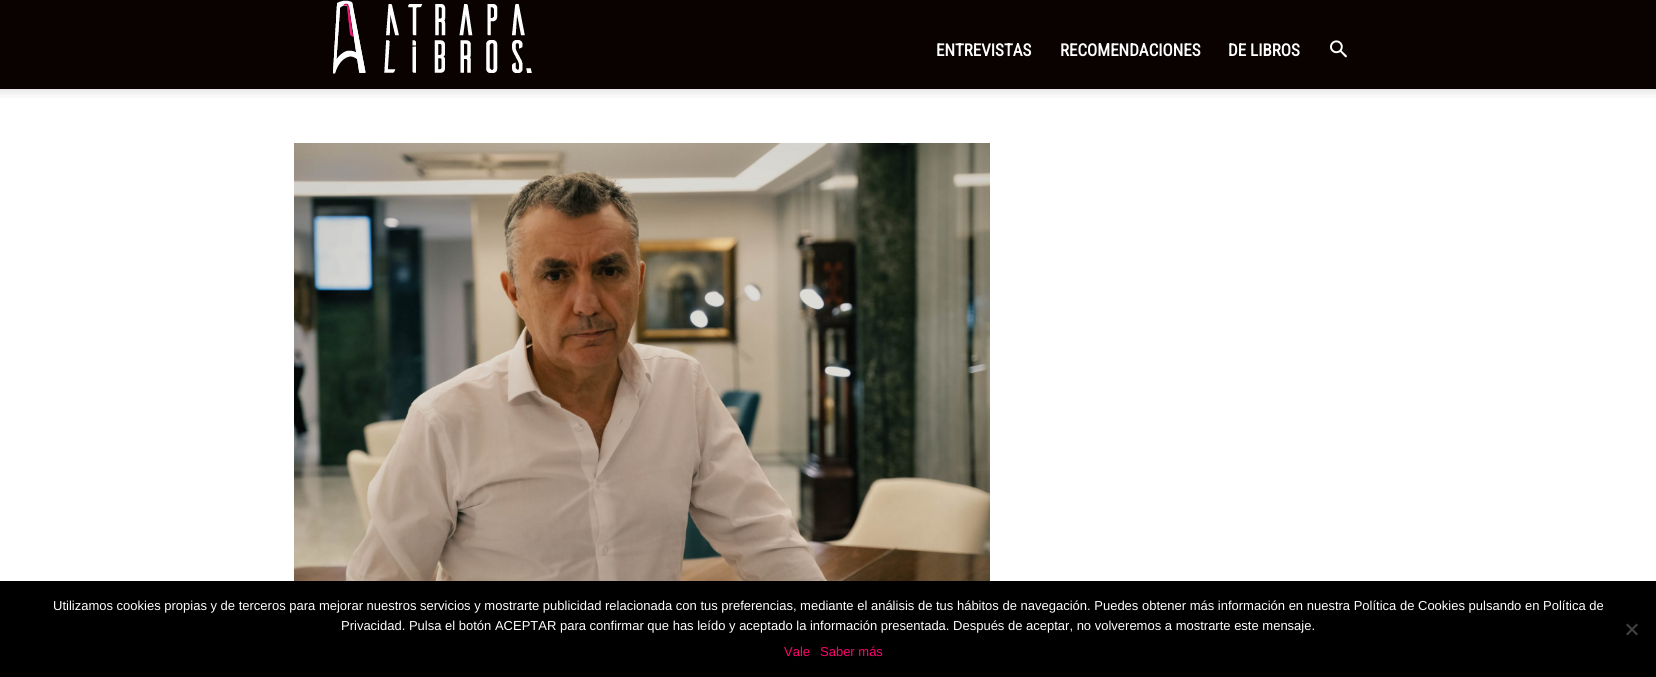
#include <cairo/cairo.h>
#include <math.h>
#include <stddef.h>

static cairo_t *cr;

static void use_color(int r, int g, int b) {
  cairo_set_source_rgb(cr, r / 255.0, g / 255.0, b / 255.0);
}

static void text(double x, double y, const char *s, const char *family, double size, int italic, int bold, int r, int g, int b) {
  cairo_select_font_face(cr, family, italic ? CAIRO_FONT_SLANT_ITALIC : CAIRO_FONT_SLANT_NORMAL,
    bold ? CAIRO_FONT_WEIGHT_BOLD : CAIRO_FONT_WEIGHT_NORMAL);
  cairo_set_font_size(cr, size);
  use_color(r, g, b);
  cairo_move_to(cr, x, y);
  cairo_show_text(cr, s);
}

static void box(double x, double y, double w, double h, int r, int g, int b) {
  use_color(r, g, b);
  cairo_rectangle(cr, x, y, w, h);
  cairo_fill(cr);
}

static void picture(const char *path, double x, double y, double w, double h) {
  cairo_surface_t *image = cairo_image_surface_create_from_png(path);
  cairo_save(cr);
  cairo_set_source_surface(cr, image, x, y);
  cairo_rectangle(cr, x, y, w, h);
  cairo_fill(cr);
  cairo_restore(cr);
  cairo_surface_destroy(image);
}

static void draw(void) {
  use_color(255, 255, 255);
  cairo_paint(cr);
  box(0, 0, 1656, 89, 10, 1, 1);
  picture("img_01.png", 333, 0, 199, 74);
  picture("img_02.png", 1330, 40, 17, 18);
  picture("img_03.png", 0, 89, 1656, 9);
  picture("img_04.png", 294, 143, 696, 438);
  box(0, 581, 1656, 96, 0, 0, 0);
  use_color(64, 64, 64);
  cairo_new_path(cr);
  cairo_move_to(cr, 1636.5, 623.5);
  cairo_line_to(cr, 1638, 625);
  cairo_line_to(cr, 1627.5, 635.5);
  cairo_line_to(cr, 1626, 634);
  cairo_close_path(cr);
  cairo_fill(cr);
  cairo_new_path(cr);
  cairo_move_to(cr, 1626, 625);
  cairo_line_to(cr, 1627.5, 623.5);
  cairo_line_to(cr, 1638, 634);
  cairo_line_to(cr, 1636.5, 635.5);
  cairo_close_path(cr);
  cairo_fill(cr);
  text(936, 56, "ENTREVISTAS", "Roboto Condensed", 17, 0, 1, 255, 255, 255);
  text(1060, 56, "RECOMENDACIONES", "Roboto Condensed", 17, 0, 1, 255, 255, 255);
  text(1228, 56, "DE LIBROS", "Roboto Condensed", 17, 0, 1, 255, 255, 255);
  text(53, 610, "Utilizamos cookies propias y de terceros para mejorar nuestros servicios y mostrarte publicidad relacionada con tus preferencias, mediante el análisis de tus hábitos de navegación. Puedes obtener más información en nuestra Política de Cookies pulsando en Política de", "Liberation Sans", 13, 0, 0, 255, 255, 255);
  text(341, 630, "Privacidad. Pulsa el botón ACEPTAR para confirmar que has leído y aceptado la información presentada. Después de aceptar, no volveremos a mostrarte este mensaje.", "Liberation Sans", 13, 0, 0, 255, 255, 255);
  text(784, 656, "Vale", "Liberation Sans", 13, 0, 0, 255, 3, 110);
  text(820, 656, "Saber más", "Liberation Sans", 13, 0, 0, 255, 3, 110);
}

int main(void) {
  cairo_surface_t *surface = cairo_image_surface_create(CAIRO_FORMAT_RGB24, 1656, 677);
  cr = cairo_create(surface);
  cairo_font_options_t *options = cairo_font_options_create();
  cairo_font_options_set_hint_metrics(options, CAIRO_HINT_METRICS_OFF);
  cairo_font_options_set_hint_style(options, CAIRO_HINT_STYLE_NONE);
  cairo_set_font_options(cr, options);
  cairo_set_miter_limit(cr, 4);
  draw();
  cairo_surface_write_to_png(surface, "out.png");
  cairo_font_options_destroy(options);
  cairo_destroy(cr);
  cairo_surface_destroy(surface);
  return 0;
}
